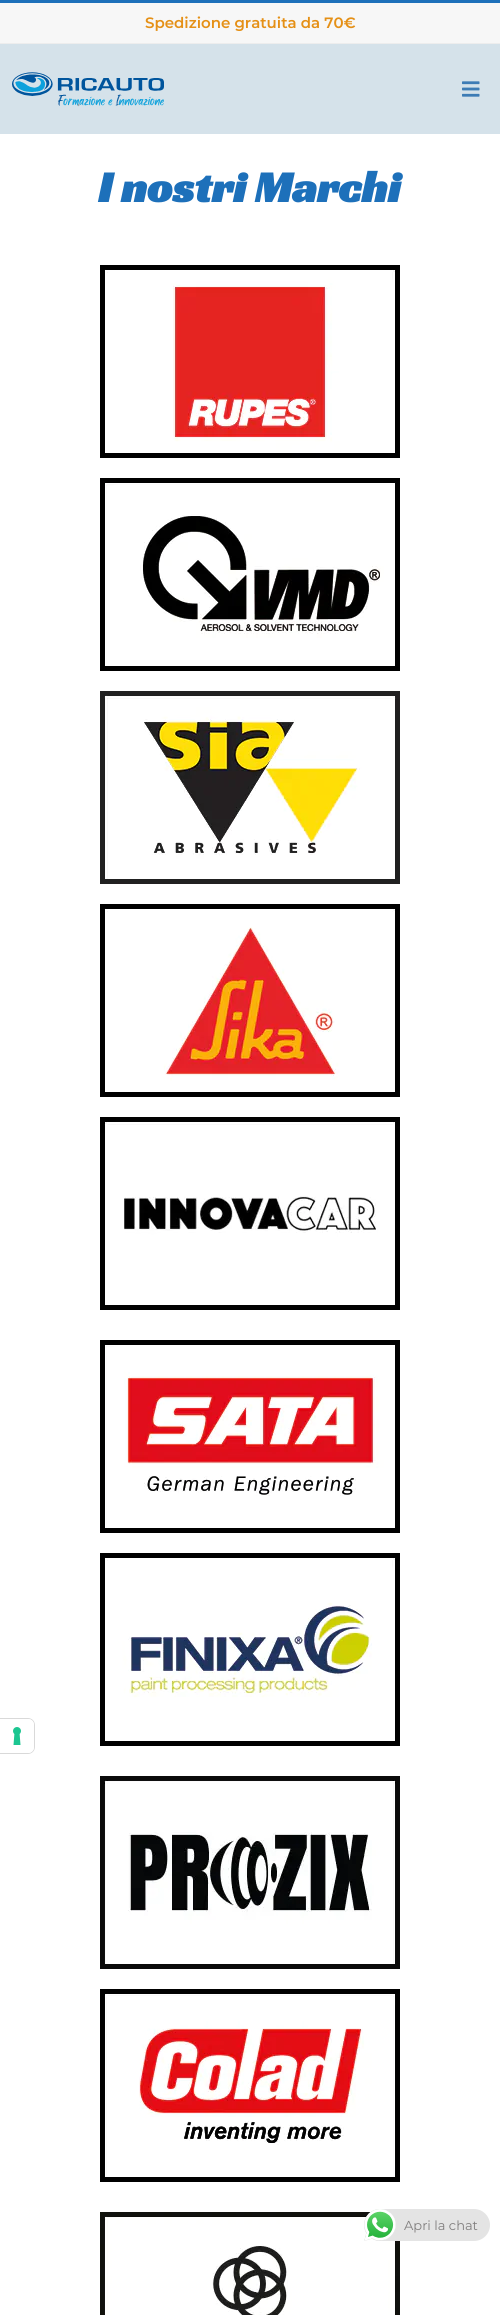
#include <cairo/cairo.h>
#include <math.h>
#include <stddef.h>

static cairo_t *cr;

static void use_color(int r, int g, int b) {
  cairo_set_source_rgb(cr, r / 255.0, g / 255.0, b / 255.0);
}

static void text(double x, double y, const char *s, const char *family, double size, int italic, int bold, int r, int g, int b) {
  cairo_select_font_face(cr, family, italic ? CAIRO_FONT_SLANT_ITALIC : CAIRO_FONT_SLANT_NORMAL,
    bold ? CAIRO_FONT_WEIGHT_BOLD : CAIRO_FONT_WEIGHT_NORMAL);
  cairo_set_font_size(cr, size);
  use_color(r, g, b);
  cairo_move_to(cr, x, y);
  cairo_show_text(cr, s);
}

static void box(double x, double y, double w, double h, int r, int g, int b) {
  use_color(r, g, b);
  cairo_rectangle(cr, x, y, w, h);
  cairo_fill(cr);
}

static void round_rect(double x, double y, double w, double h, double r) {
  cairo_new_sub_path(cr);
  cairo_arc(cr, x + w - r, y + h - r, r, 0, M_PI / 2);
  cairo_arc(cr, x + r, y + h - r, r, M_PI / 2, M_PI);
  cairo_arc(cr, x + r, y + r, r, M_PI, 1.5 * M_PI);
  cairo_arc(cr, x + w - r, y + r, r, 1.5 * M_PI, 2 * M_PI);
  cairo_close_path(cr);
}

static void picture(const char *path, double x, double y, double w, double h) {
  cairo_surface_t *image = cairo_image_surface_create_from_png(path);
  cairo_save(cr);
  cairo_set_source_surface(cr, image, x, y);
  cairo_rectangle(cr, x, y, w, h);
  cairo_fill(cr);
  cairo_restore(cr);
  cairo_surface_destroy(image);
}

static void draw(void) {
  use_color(213, 226, 234);
  cairo_paint(cr);
  box(0, 0, 500, 3, 29, 112, 186);
  box(0, 3, 500, 40, 247, 247, 247);
  box(0, 43, 500, 1, 237, 237, 237);
  picture("img_01.png", 12, 72, 152, 35);
  picture("img_02.png", 462, 81, 18, 16);
  box(0, 134, 500, 2181, 255, 255, 255);
  picture("img_03.png", 100, 265, 300, 193);
  picture("img_04.png", 100, 478, 300, 193);
  picture("img_05.png", 100, 691, 300, 193);
  picture("img_06.png", 100, 904, 300, 193);
  picture("img_07.png", 100, 1117, 300, 193);
  picture("img_08.png", 100, 1340, 300, 193);
  picture("img_09.png", 100, 1553, 300, 193);
  picture("img_10.png", 100, 1776, 300, 193);
  picture("img_11.png", 100, 1989, 300, 193);
  picture("img_12.png", 100, 2212, 300, 103);
  cairo_new_path(cr);
  cairo_move_to(cr, -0.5, 1718.5);
  cairo_line_to(cr, 28, 1718.5);
  cairo_curve_to(cr, 31.5, 1718.5, 34.5, 1721.5, 34.5, 1725);
  cairo_line_to(cr, 34.5, 1747);
  cairo_curve_to(cr, 34.5, 1750.5, 31.5, 1753.5, 28, 1753.5);
  cairo_line_to(cr, -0.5, 1753.5);
  cairo_close_path(cr);
  use_color(217, 217, 217);
  cairo_set_line_width(cr, 1);
  cairo_stroke(cr);
  use_color(255, 255, 255);
  cairo_new_path(cr);
  cairo_move_to(cr, 0, 1719);
  cairo_line_to(cr, 28, 1719);
  cairo_curve_to(cr, 31.5, 1719, 34, 1721.5, 34, 1725);
  cairo_line_to(cr, 34, 1747);
  cairo_curve_to(cr, 34, 1750.5, 31.5, 1753, 28, 1753);
  cairo_line_to(cr, 0, 1753);
  cairo_close_path(cr);
  cairo_fill(cr);
  picture("img_13.png", 13, 1727, 8, 18);
  use_color(228, 228, 228);
  round_rect(364, 2209, 126, 32, 16);
  cairo_fill(cr);
  picture("img_14.png", 364, 2209, 32, 32);
  text(145, 28, "Spedizione gratuita da 70€", "Montserrat SemiBold", 15, 0, 0, 229, 144, 22);
  text(98, 202, "I nostri Marchi", "Racing Sans One", 44.5, 0, 1, 29, 112, 186);
  text(404, 2230, "Apri la chat", "Montserrat", 13, 0, 0, 127, 125, 125);
}

int main(void) {
  cairo_surface_t *surface = cairo_image_surface_create(CAIRO_FORMAT_RGB24, 500, 2315);
  cr = cairo_create(surface);
  cairo_font_options_t *options = cairo_font_options_create();
  cairo_font_options_set_hint_metrics(options, CAIRO_HINT_METRICS_OFF);
  cairo_font_options_set_hint_style(options, CAIRO_HINT_STYLE_NONE);
  cairo_set_font_options(cr, options);
  cairo_set_miter_limit(cr, 4);
  draw();
  cairo_surface_write_to_png(surface, "out.png");
  cairo_font_options_destroy(options);
  cairo_destroy(cr);
  cairo_surface_destroy(surface);
  return 0;
}
